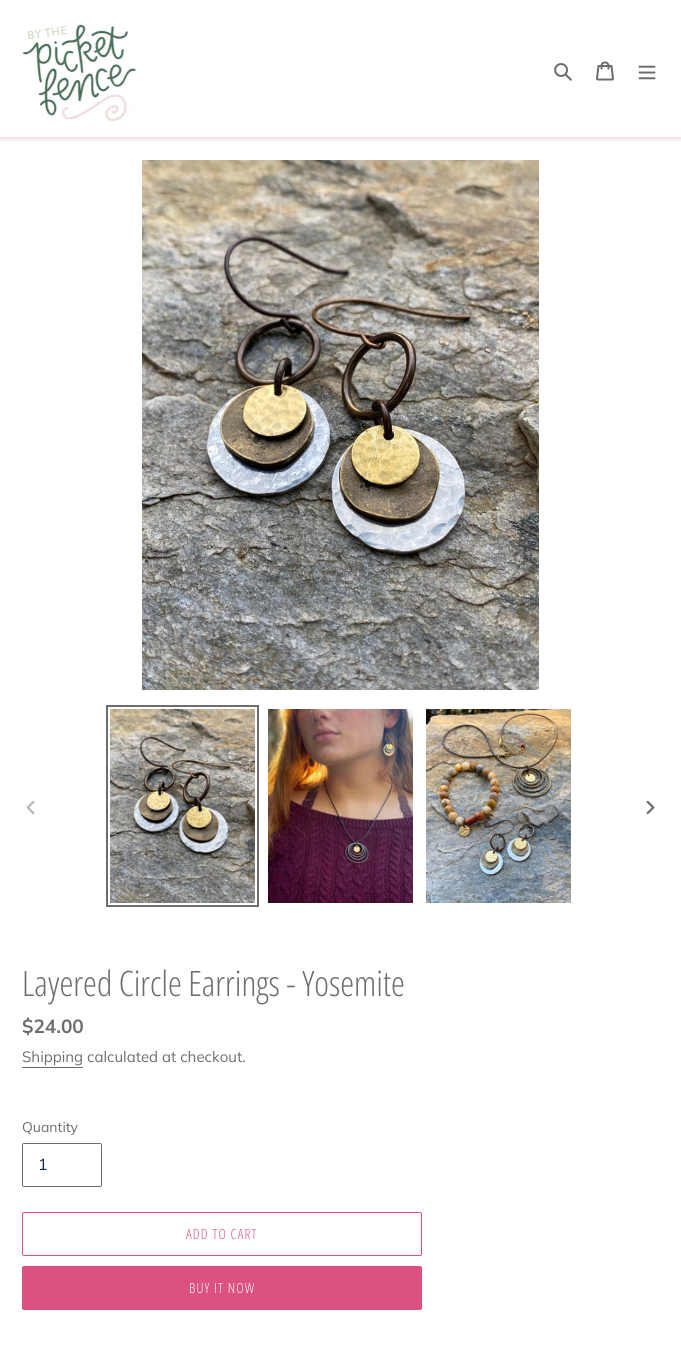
#include <cairo/cairo.h>
#include <math.h>
#include <stddef.h>

static cairo_t *cr;

static void use_color(int r, int g, int b) {
  cairo_set_source_rgb(cr, r / 255.0, g / 255.0, b / 255.0);
}

static void text(double x, double y, const char *s, const char *family, double size, int italic, int bold, int r, int g, int b) {
  cairo_select_font_face(cr, family, italic ? CAIRO_FONT_SLANT_ITALIC : CAIRO_FONT_SLANT_NORMAL,
    bold ? CAIRO_FONT_WEIGHT_BOLD : CAIRO_FONT_WEIGHT_NORMAL);
  cairo_set_font_size(cr, size);
  use_color(r, g, b);
  cairo_move_to(cr, x, y);
  cairo_show_text(cr, s);
}

static void spaced_text(double x, double y, const char *s, double letter, double word) {
  cairo_move_to(cr, x, y);
  while (*s) {
    char ch[5] = {0};
    int n = 0;
    do ch[n++] = *s++; while ((*s & 0xC0) == 0x80);
    cairo_show_text(cr, ch);
    cairo_rel_move_to(cr, letter + word * (*ch == ' '), 0);
  }
}

static void box(double x, double y, double w, double h, int r, int g, int b) {
  use_color(r, g, b);
  cairo_rectangle(cr, x, y, w, h);
  cairo_fill(cr);
}

static void round_rect(double x, double y, double w, double h, double r) {
  cairo_new_sub_path(cr);
  cairo_arc(cr, x + w - r, y + h - r, r, 0, M_PI / 2);
  cairo_arc(cr, x + r, y + h - r, r, M_PI / 2, M_PI);
  cairo_arc(cr, x + r, y + r, r, M_PI, 1.5 * M_PI);
  cairo_arc(cr, x + w - r, y + r, r, 1.5 * M_PI, 2 * M_PI);
  cairo_close_path(cr);
}

static void shadow(double x, double y, double w, double h, double r, double blur, double alpha) {
  cairo_push_group_with_content(cr, CAIRO_CONTENT_ALPHA);
  cairo_set_operator(cr, CAIRO_OPERATOR_SOURCE);
  for (int i = 15; i >= -15 && fmin(w, h) + blur * i / 3 > 0; i -= 2) {
    double e = blur * i / 6;
    cairo_set_source_rgba(cr, 0, 0, 0, alpha * erfc((i - 1) / 8.5) / 2);
    round_rect(x - e, y - e, w + 2 * e, h + 2 * e, fmax(0, fmin(r + e + blur * .6, fmin(w, h) / 2 + e)));
    cairo_fill(cr);
  }
  cairo_pattern_t *soft = cairo_pop_group(cr);
  cairo_mask(cr, soft);
  cairo_pattern_destroy(soft);
}

static void picture(const char *path, double x, double y, double w, double h) {
  cairo_surface_t *image = cairo_image_surface_create_from_png(path);
  cairo_save(cr);
  cairo_set_source_surface(cr, image, x, y);
  cairo_rectangle(cr, x, y, w, h);
  cairo_fill(cr);
  cairo_restore(cr);
  cairo_surface_destroy(image);
}

static void draw(void) {
  use_color(255, 255, 255);
  cairo_paint(cr);
  cairo_save(cr);
  cairo_rectangle(cr, 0, 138, 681, 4);
  cairo_clip(cr);
  use_color(0, 0, 0);
  shadow(0, 2, 681, 138, 0, 2, 0.1);
  cairo_restore(cr);
  box(0, 137, 681, 1, 251, 218, 219);
  picture("img_01.png", 22, 24, 114, 98);
  picture("img_02.png", 554, 63, 18, 18);
  picture("img_03.png", 596, 61, 18, 20);
  picture("img_04.png", 638, 65, 18, 15);
  picture("img_05.png", 142, 160, 397, 530);
  picture("img_06.png", 26, 801, 9, 14);
  cairo_rectangle(cr, 107, 706, 151, 200);
  use_color(109, 109, 109);
  cairo_stroke(cr);
  picture("img_07.png", 110, 709, 145, 194);
  picture("img_08.png", 268, 709, 145, 194);
  picture("img_09.png", 426, 709, 145, 194);
  picture("img_10.png", 646, 801, 9, 14);
  box(22, 1067, 61, 1, 109, 109, 109);
  round_rect(22.5, 1143.5, 79, 43, 1.5);
  cairo_set_line_width(cr, 1);
  cairo_stroke(cr);
  round_rect(22.5, 1212.5, 399, 43, 1.5);
  use_color(220, 81, 127);
  cairo_stroke(cr);
  round_rect(22, 1266, 400, 44, 2);
  cairo_fill(cr);
  text(22, 996, "Layered Circle Earrings - Yosemite", "Open Sans Condensed Light", 35, 0, 0, 109, 109, 109);
  text(22, 1033, "$24.00", "Muli", 19, 0, 1, 109, 109, 109);
  text(22, 1062, "Shipping calculated at checkout.", "Muli", 15, 0, 0, 109, 109, 109);
  text(22, 1132, "Quantity", "Muli", 14, 0, 0, 109, 109, 109);
  text(38, 1170, "1", "Muli", 16, 0, 0, 22, 41, 80);
  cairo_select_font_face(cr, "Open Sans Condensed Light", CAIRO_FONT_SLANT_NORMAL, CAIRO_FONT_WEIGHT_NORMAL);
  cairo_set_font_size(cr, 14);
  use_color(220, 81, 127);
  spaced_text(186, 1239, "ADD TO CART", 1.1, 0);
  use_color(255, 255, 255);
  spaced_text(189, 1293, "BUY IT NOW", 1.1, 0);
}

int main(void) {
  cairo_surface_t *surface = cairo_image_surface_create(CAIRO_FORMAT_RGB24, 681, 1354);
  cr = cairo_create(surface);
  cairo_font_options_t *options = cairo_font_options_create();
  cairo_font_options_set_hint_metrics(options, CAIRO_HINT_METRICS_OFF);
  cairo_font_options_set_hint_style(options, CAIRO_HINT_STYLE_NONE);
  cairo_set_font_options(cr, options);
  cairo_set_miter_limit(cr, 4);
  draw();
  cairo_surface_write_to_png(surface, "out.png");
  cairo_font_options_destroy(options);
  cairo_destroy(cr);
  cairo_surface_destroy(surface);
  return 0;
}
